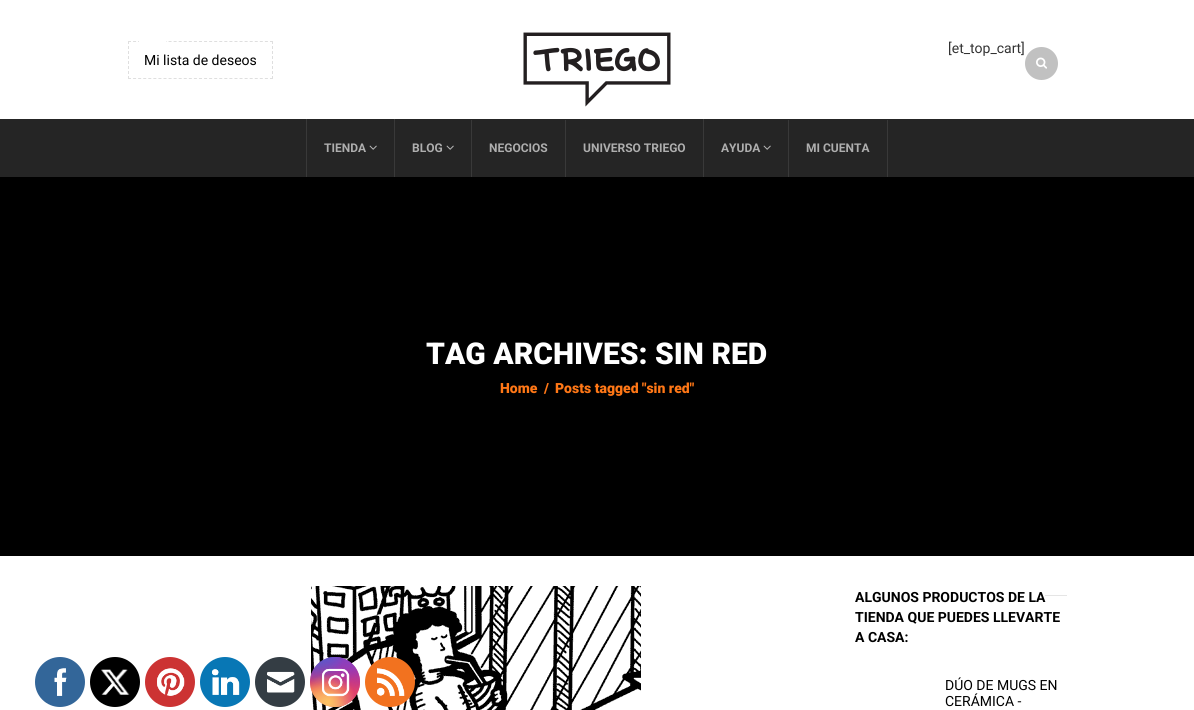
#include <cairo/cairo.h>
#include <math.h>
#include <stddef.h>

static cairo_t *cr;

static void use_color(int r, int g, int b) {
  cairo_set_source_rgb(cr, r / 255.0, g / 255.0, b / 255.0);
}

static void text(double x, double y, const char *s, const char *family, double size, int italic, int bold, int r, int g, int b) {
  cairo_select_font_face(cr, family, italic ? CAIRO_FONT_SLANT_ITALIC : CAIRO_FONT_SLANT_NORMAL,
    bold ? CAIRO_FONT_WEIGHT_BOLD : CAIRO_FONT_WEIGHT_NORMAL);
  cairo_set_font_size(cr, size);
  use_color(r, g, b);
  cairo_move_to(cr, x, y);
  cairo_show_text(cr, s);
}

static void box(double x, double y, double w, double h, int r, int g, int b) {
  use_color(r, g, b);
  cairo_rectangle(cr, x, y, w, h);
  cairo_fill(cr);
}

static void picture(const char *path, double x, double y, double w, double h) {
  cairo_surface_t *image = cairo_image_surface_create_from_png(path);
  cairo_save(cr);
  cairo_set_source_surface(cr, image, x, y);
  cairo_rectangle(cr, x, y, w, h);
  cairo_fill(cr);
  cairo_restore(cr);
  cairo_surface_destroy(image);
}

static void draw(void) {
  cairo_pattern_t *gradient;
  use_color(255, 255, 255);
  cairo_paint(cr);
  picture("img_01.png", 523, 32, 148, 75);
  use_color(193, 193, 193);
  cairo_arc(cr, 1041.5, 63.5, 16.5, 0, 2 * M_PI);
  cairo_fill(cr);
  picture("img_02.png", 1036, 57, 11, 12);
  cairo_new_path(cr);
  cairo_move_to(cr, 128, 41.5);
  cairo_line_to(cr, 273, 41.5);
  use_color(223, 223, 223);
  cairo_set_line_width(cr, 1);
  cairo_set_dash(cr, (double[]){3, 2.07}, 2, 0);
  cairo_stroke(cr);
  cairo_new_path(cr);
  cairo_move_to(cr, 272.5, 41);
  cairo_line_to(cr, 272.5, 79);
  cairo_set_dash(cr, (double[]){3, 2}, 2, 0);
  cairo_stroke(cr);
  cairo_new_path(cr);
  cairo_move_to(cr, 128, 78.5);
  cairo_line_to(cr, 273, 78.5);
  cairo_set_dash(cr, (double[]){3, 2.07}, 2, 0);
  cairo_stroke(cr);
  cairo_new_path(cr);
  cairo_move_to(cr, 128.5, 41);
  cairo_line_to(cr, 128.5, 79);
  cairo_set_dash(cr, (double[]){3, 2}, 2, 0);
  cairo_stroke(cr);
  box(139, 41, 27, 1, 255, 255, 255);
  box(0, 119, 1194, 58, 37, 37, 37);
  box(306, 119, 1, 58, 57, 57, 57);
  picture("img_03.png", 369, 145, 8, 5);
  box(394, 119, 1, 58, 57, 57, 57);
  picture("img_03.png", 446, 145, 8, 5);
  box(471, 120, 1, 57, 57, 57, 57);
  box(565, 120, 1, 57, 57, 57, 57);
  box(703, 119, 1, 58, 57, 57, 57);
  picture("img_03.png", 763, 145, 8, 5);
  box(887, 120, 1, 57, 57, 57, 57);
  box(788, 120, 1, 57, 57, 57, 57);
  box(0, 177, 1194, 379, 0, 0, 0);
  picture("img_04.png", 311, 586, 330, 124);
  box(1045, 595, 22, 1, 229, 229, 229);
  use_color(51, 102, 153);
  cairo_arc(cr, 60, 682, 25, 0, 2 * M_PI);
  cairo_fill(cr);
  picture("img_05.png", 54, 668, 13, 28);
  use_color(0, 0, 0);
  cairo_arc(cr, 115, 682, 25, 0, 2 * M_PI);
  cairo_fill(cr);
  picture("img_06.png", 101, 669, 29, 26);
  use_color(204, 51, 51);
  cairo_arc(cr, 170, 682, 25, 0, 2 * M_PI);
  cairo_fill(cr);
  picture("img_07.png", 157, 668, 28, 28);
  use_color(8, 119, 181);
  cairo_arc(cr, 225, 682, 25, 0, 2 * M_PI);
  cairo_fill(cr);
  picture("img_08.png", 212, 669, 28, 26);
  use_color(52, 61, 68);
  cairo_arc(cr, 280, 682, 25, 0, 2 * M_PI);
  cairo_fill(cr);
  picture("img_09.png", 267, 671, 28, 22);
  gradient = cairo_pattern_create_linear(335, 657, 335, 707);
  cairo_pattern_add_color_stop_rgba(gradient, 0, 0.396, 0.349, 0.792, 1);
  cairo_pattern_add_color_stop_rgba(gradient, 0.3, 0.737, 0.192, 0.561, 1);
  cairo_pattern_add_color_stop_rgba(gradient, 0.5, 0.89, 0.247, 0.373, 1);
  cairo_pattern_add_color_stop_rgba(gradient, 0.7, 0.969, 0.463, 0.22, 1);
  cairo_pattern_add_color_stop_rgba(gradient, 1, 0.996, 0.776, 0.427, 1);
  cairo_set_source(cr, gradient);
  cairo_pattern_destroy(gradient);
  cairo_arc(cr, 335, 682, 25, 0, 2 * M_PI);
  cairo_fill(cr);
  gradient = cairo_pattern_create_radial(360, 707, 0, 360, 707, 71);
  cairo_pattern_add_color_stop_rgba(gradient, 0, 0.851, 0.192, 0.478, 1);
  cairo_pattern_add_color_stop_rgba(gradient, 1, 0.851, 0.192, 0.478, 0);
  cairo_set_source(cr, gradient);
  cairo_pattern_destroy(gradient);
  cairo_arc(cr, 335, 682, 25, 0, 2 * M_PI);
  cairo_fill(cr);
  gradient = cairo_pattern_create_radial(0, 0, 0, 0, 0, 1);
  cairo_pattern_set_matrix(gradient, &(cairo_matrix_t){1.0 / 42, 0, 0, 1.0 / 85, -1.0 * 340 / 42, -1.0 * 647 / 85});
  cairo_pattern_add_color_stop_rgba(gradient, 0, 0.537, 0.239, 0.761, 1);
  cairo_pattern_add_color_stop_rgba(gradient, 0.5, 0.537, 0.239, 0.761, 0);
  cairo_set_source(cr, gradient);
  cairo_pattern_destroy(gradient);
  cairo_arc(cr, 335, 682, 25, 0, 2 * M_PI);
  cairo_fill(cr);
  gradient = cairo_pattern_create_radial(360, 657, 0, 360, 657, 71);
  cairo_pattern_add_color_stop_rgba(gradient, 0, 0.537, 0.239, 0.761, 1);
  cairo_pattern_add_color_stop_rgba(gradient, 0.5, 0.537, 0.239, 0.761, 0);
  cairo_set_source(cr, gradient);
  cairo_pattern_destroy(gradient);
  cairo_arc(cr, 335, 682, 25, 0, 2 * M_PI);
  cairo_fill(cr);
  gradient = cairo_pattern_create_radial(0, 0, 0, 0, 0, 1);
  cairo_pattern_set_matrix(gradient, &(cairo_matrix_t){1.0 / 57, 0, 0, 1.0 / 106, -1.0 * 320 / 57, -1.0 * 632 / 106});
  cairo_pattern_add_color_stop_rgba(gradient, 0, 0.322, 0.345, 0.812, 1);
  cairo_pattern_add_color_stop_rgba(gradient, 0.5, 0.322, 0.345, 0.812, 0);
  cairo_set_source(cr, gradient);
  cairo_pattern_destroy(gradient);
  cairo_arc(cr, 335, 682, 25, 0, 2 * M_PI);
  cairo_fill(cr);
  gradient = cairo_pattern_create_radial(0, 0, 0, 0, 0, 1);
  cairo_pattern_set_matrix(gradient, &(cairo_matrix_t){1.0 / 71, 0, 0, 1.0 / 88, -1.0 * 310 / 71, -1.0 * 645 / 88});
  cairo_pattern_add_color_stop_rgba(gradient, 0, 0.322, 0.345, 0.812, 1);
  cairo_pattern_add_color_stop_rgba(gradient, 0.5, 0.322, 0.345, 0.812, 0);
  cairo_set_source(cr, gradient);
  cairo_pattern_destroy(gradient);
  cairo_arc(cr, 335, 682, 25, 0, 2 * M_PI);
  cairo_fill(cr);
  gradient = cairo_pattern_create_radial(310, 727, 0, 310, 727, 86);
  cairo_pattern_add_color_stop_rgba(gradient, 0, 0.996, 0.773, 0.392, 1);
  cairo_pattern_add_color_stop_rgba(gradient, 0.5, 0.996, 0.773, 0.392, 0);
  cairo_set_source(cr, gradient);
  cairo_pattern_destroy(gradient);
  cairo_arc(cr, 335, 682, 25, 0, 2 * M_PI);
  cairo_fill(cr);
  gradient = cairo_pattern_create_radial(328, 702, 0, 328, 702, 56);
  cairo_pattern_add_color_stop_rgba(gradient, 0, 0.996, 0.773, 0.392, 1);
  cairo_pattern_add_color_stop_rgba(gradient, 0.5, 0.996, 0.773, 0.392, 0);
  cairo_set_source(cr, gradient);
  cairo_pattern_destroy(gradient);
  cairo_arc(cr, 335, 682, 25, 0, 2 * M_PI);
  cairo_fill(cr);
  picture("img_10.png", 322, 668, 28, 29);
  use_color(242, 114, 31);
  cairo_arc(cr, 390, 682, 25, 0, 2 * M_PI);
  cairo_fill(cr);
  picture("img_11.png", 377, 668, 28, 28);
  text(948, 53, "[et_top_cart]", "Roboto", 14, 0, 0, 51, 51, 51);
  text(144, 65, "Mi lista de deseos", "Roboto", 14, 0, 0, 0, 0, 0);
  text(324, 152, "TIENDA", "Roboto", 12, 0, 1, 174, 174, 174);
  text(412, 152, "BLOG", "Roboto", 12, 0, 1, 174, 174, 174);
  text(489, 152, "NEGOCIOS", "Roboto", 12, 0, 1, 174, 174, 174);
  text(583, 152, "UNIVERSO TRIEGO", "Roboto", 12, 0, 1, 174, 174, 174);
  text(721, 152, "AYUDA", "Roboto", 12, 0, 1, 174, 174, 174);
  text(806, 152, "MI CUENTA", "Roboto", 12, 0, 1, 174, 174, 174);
  text(426, 364, "TAG ARCHIVES: SIN RED", "Roboto Black", 30, 0, 0, 255, 255, 255);
  text(500, 393, "Home", "Roboto Black", 14, 0, 0, 255, 119, 22);
  text(544, 393, "/", "Roboto Black", 14, 0, 0, 255, 119, 22);
  text(555, 393, "Posts tagged \"sin red\"", "Roboto Black", 14, 0, 0, 255, 119, 22);
  text(855, 602, "ALGUNOS PRODUCTOS DE LA", "Roboto", 14, 0, 1, 0, 0, 0);
  text(855, 622, "TIENDA QUE PUEDES LLEVARTE", "Roboto", 14, 0, 1, 0, 0, 0);
  text(855, 642, "A CASA:", "Roboto", 14, 0, 1, 0, 0, 0);
  text(945, 690, "DÚO DE MUGS EN", "Roboto", 14, 0, 0, 0, 0, 0);
  text(945, 706, "CERÁMICA -", "Roboto", 14, 0, 0, 0, 0, 0);
}

int main(void) {
  cairo_surface_t *surface = cairo_image_surface_create(CAIRO_FORMAT_RGB24, 1194, 710);
  cr = cairo_create(surface);
  cairo_font_options_t *options = cairo_font_options_create();
  cairo_font_options_set_hint_metrics(options, CAIRO_HINT_METRICS_OFF);
  cairo_font_options_set_hint_style(options, CAIRO_HINT_STYLE_NONE);
  cairo_set_font_options(cr, options);
  cairo_set_miter_limit(cr, 4);
  draw();
  cairo_surface_write_to_png(surface, "out.png");
  cairo_font_options_destroy(options);
  cairo_destroy(cr);
  cairo_surface_destroy(surface);
  return 0;
}
